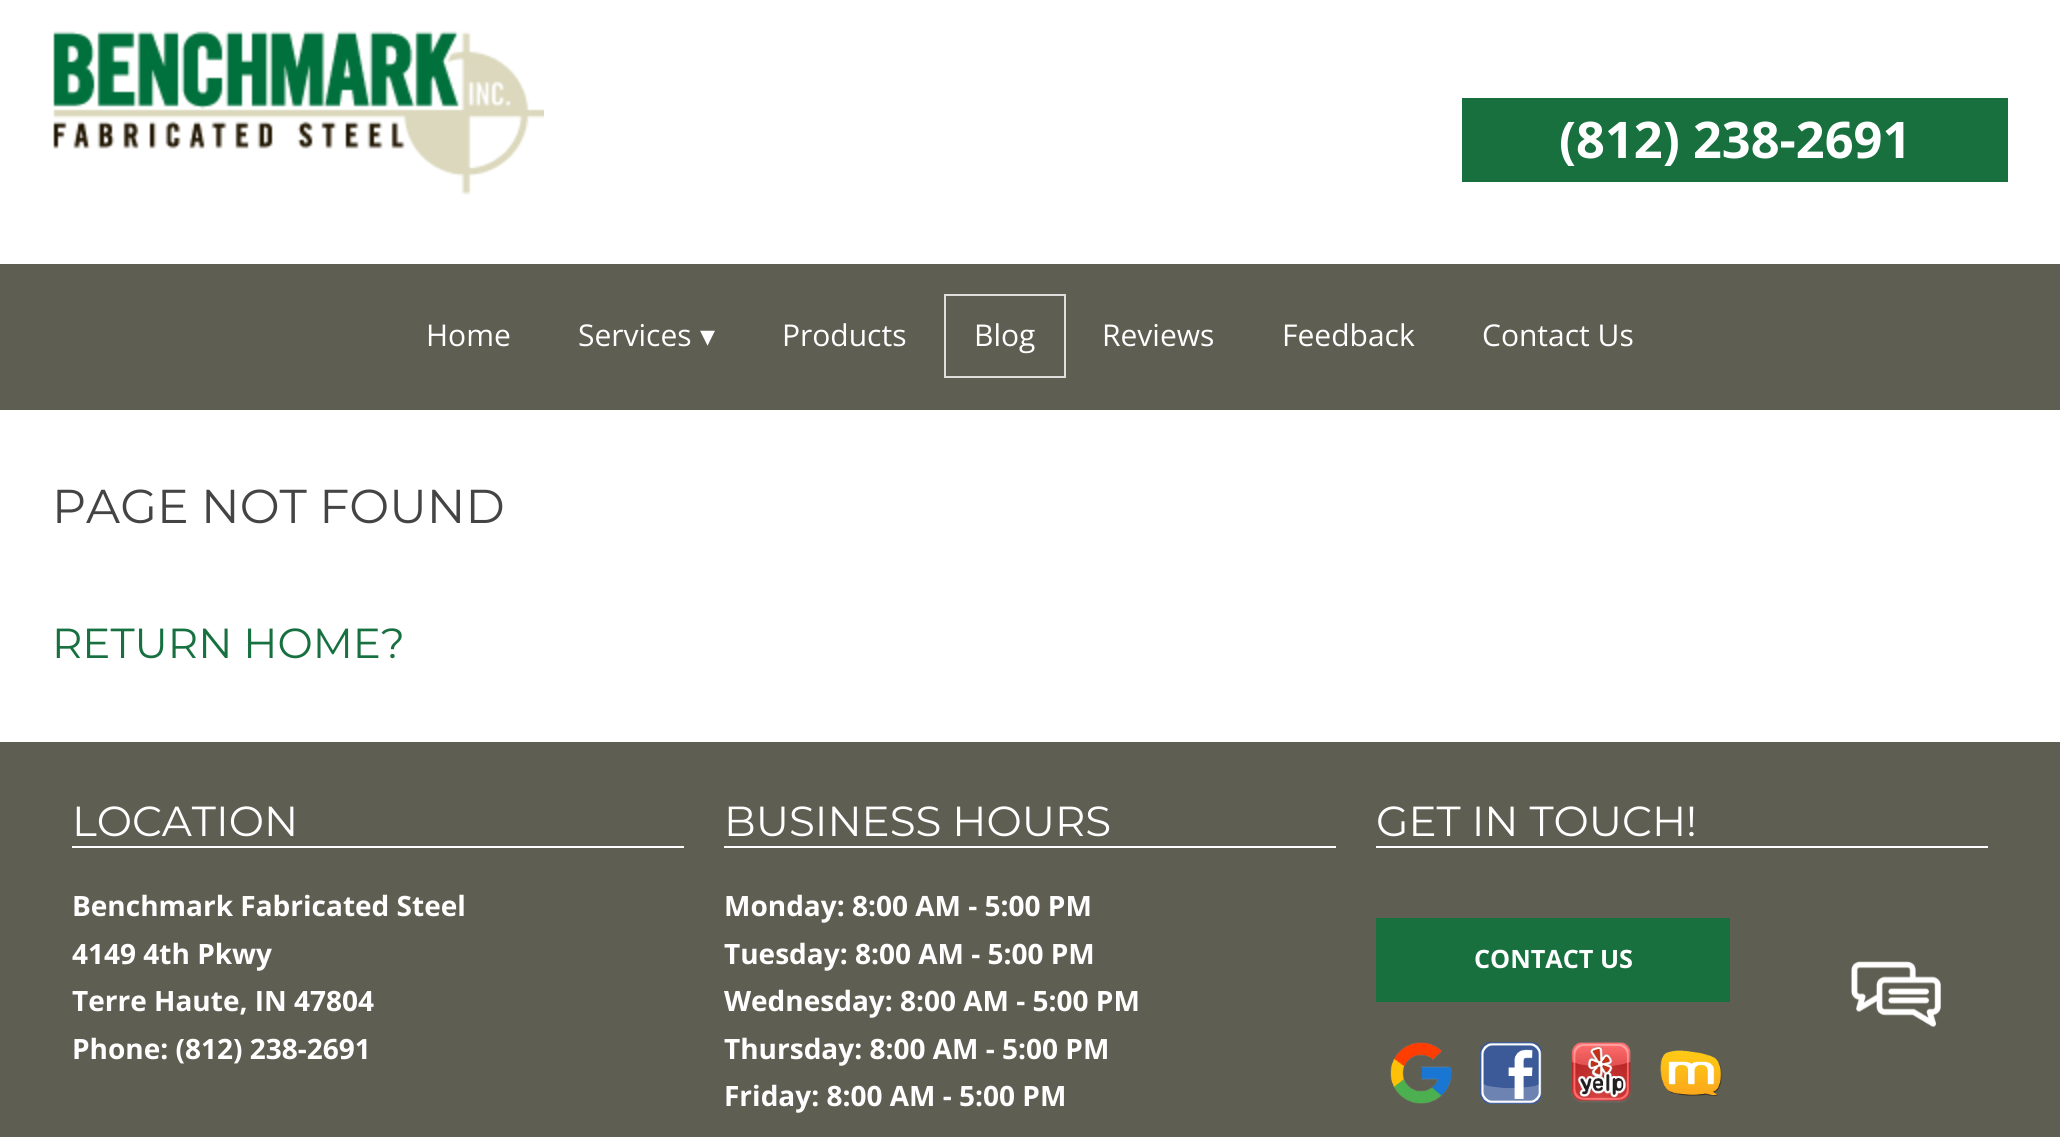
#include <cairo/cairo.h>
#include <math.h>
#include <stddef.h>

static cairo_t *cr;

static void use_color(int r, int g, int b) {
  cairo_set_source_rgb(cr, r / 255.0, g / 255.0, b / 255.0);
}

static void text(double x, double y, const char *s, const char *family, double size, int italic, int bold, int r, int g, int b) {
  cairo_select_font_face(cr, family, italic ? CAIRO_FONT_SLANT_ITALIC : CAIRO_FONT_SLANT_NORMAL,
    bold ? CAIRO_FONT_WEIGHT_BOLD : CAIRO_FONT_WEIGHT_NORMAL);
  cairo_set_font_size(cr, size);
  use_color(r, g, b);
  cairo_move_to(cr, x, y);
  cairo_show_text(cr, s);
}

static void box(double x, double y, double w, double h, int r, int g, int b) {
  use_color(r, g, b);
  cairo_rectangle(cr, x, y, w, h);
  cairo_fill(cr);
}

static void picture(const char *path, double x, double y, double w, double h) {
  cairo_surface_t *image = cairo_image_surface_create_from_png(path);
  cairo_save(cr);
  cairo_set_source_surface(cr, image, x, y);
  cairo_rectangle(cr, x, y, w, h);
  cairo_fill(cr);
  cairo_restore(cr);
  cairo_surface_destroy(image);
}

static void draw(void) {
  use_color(255, 255, 255);
  cairo_paint(cr);
  picture("img_01.png", 53, 31, 491, 164);
  box(1462, 98, 546, 84, 23, 112, 62);
  box(0, 264, 2060, 146, 95, 94, 82);
  cairo_rectangle(cr, 945, 295, 120, 82);
  use_color(223, 223, 220);
  cairo_stroke(cr);
  box(0, 742, 2060, 395, 95, 94, 82);
  box(72, 846, 612, 2, 255, 255, 255);
  box(724, 846, 612, 2, 255, 255, 255);
  box(1376, 846, 612, 2, 255, 255, 255);
  box(1376, 918, 354, 84, 23, 112, 62);
  picture("img_02.png", 1390, 1042, 62, 62);
  picture("img_03.png", 1480, 1042, 62, 62);
  picture("img_04.png", 1571, 1042, 60, 61);
  picture("img_05.png", 1660, 1050, 62, 46);
  picture("img_06.png", 1851, 961, 90, 66);
  text(1559, 158, "(812) 238-2691", "Open Sans", 50.5, 0, 1, 255, 255, 255);
  text(426, 346, "Home", "Open Sans", 30, 0, 0, 255, 255, 255);
  text(578, 346, "Services", "Open Sans", 30, 0, 0, 255, 255, 255);
  text(700, 346, "▾", "DejaVu Sans", 30, 0, 0, 255, 255, 255);
  text(782, 346, "Products", "Open Sans", 30, 0, 0, 255, 255, 255);
  text(974, 346, "Blog", "Open Sans", 30, 0, 0, 255, 255, 255);
  text(1102, 346, "Reviews", "Open Sans", 30, 0, 0, 255, 255, 255);
  text(1282, 346, "Feedback", "Open Sans", 30, 0, 0, 255, 255, 255);
  text(1482, 346, "Contact Us", "Open Sans", 30, 0, 0, 255, 255, 255);
  text(52, 523, "PAGE NOT FOUND", "Montserrat", 47.5, 0, 0, 68, 68, 68);
  text(52, 658, "RETURN HOME?", "Montserrat", 42, 0, 0, 23, 112, 63);
  text(72, 836, "LOCATION", "Montserrat", 42, 0, 0, 255, 255, 255);
  text(72, 916, "Benchmark Fabricated Steel", "Open Sans", 28, 0, 1, 255, 255, 255);
  text(72, 964, "4149 4th Pkwy", "Open Sans", 28, 0, 1, 255, 255, 255);
  text(72, 1011, "Terre Haute, IN 47804", "Open Sans", 28, 0, 1, 255, 255, 255);
  text(72, 1059, "Phone: (812) 238-2691", "Open Sans", 28, 0, 1, 255, 255, 255);
  text(724, 836, "BUSINESS HOURS", "Montserrat", 42, 0, 0, 255, 255, 255);
  text(724, 916, "Monday: 8:00 AM - 5:00 PM", "Open Sans", 28, 0, 1, 255, 255, 255);
  text(724, 964, "Tuesday: 8:00 AM - 5:00 PM", "Open Sans", 28, 0, 1, 255, 255, 255);
  text(724, 1011, "Wednesday: 8:00 AM - 5:00 PM", "Open Sans", 28, 0, 1, 255, 255, 255);
  text(724, 1059, "Thursday: 8:00 AM - 5:00 PM", "Open Sans", 28, 0, 1, 255, 255, 255);
  text(724, 1106, "Friday: 8:00 AM - 5:00 PM", "Open Sans", 28, 0, 1, 255, 255, 255);
  text(1376, 836, "GET IN TOUCH!", "Montserrat", 42, 0, 0, 255, 255, 255);
  text(1474, 968, "CONTACT US", "Open Sans", 25.25, 0, 1, 255, 255, 255);
}

int main(void) {
  cairo_surface_t *surface = cairo_image_surface_create(CAIRO_FORMAT_RGB24, 2060, 1137);
  cr = cairo_create(surface);
  cairo_font_options_t *options = cairo_font_options_create();
  cairo_font_options_set_hint_metrics(options, CAIRO_HINT_METRICS_OFF);
  cairo_font_options_set_hint_style(options, CAIRO_HINT_STYLE_NONE);
  cairo_set_font_options(cr, options);
  cairo_set_miter_limit(cr, 4);
  draw();
  cairo_surface_write_to_png(surface, "out.png");
  cairo_font_options_destroy(options);
  cairo_destroy(cr);
  cairo_surface_destroy(surface);
  return 0;
}
